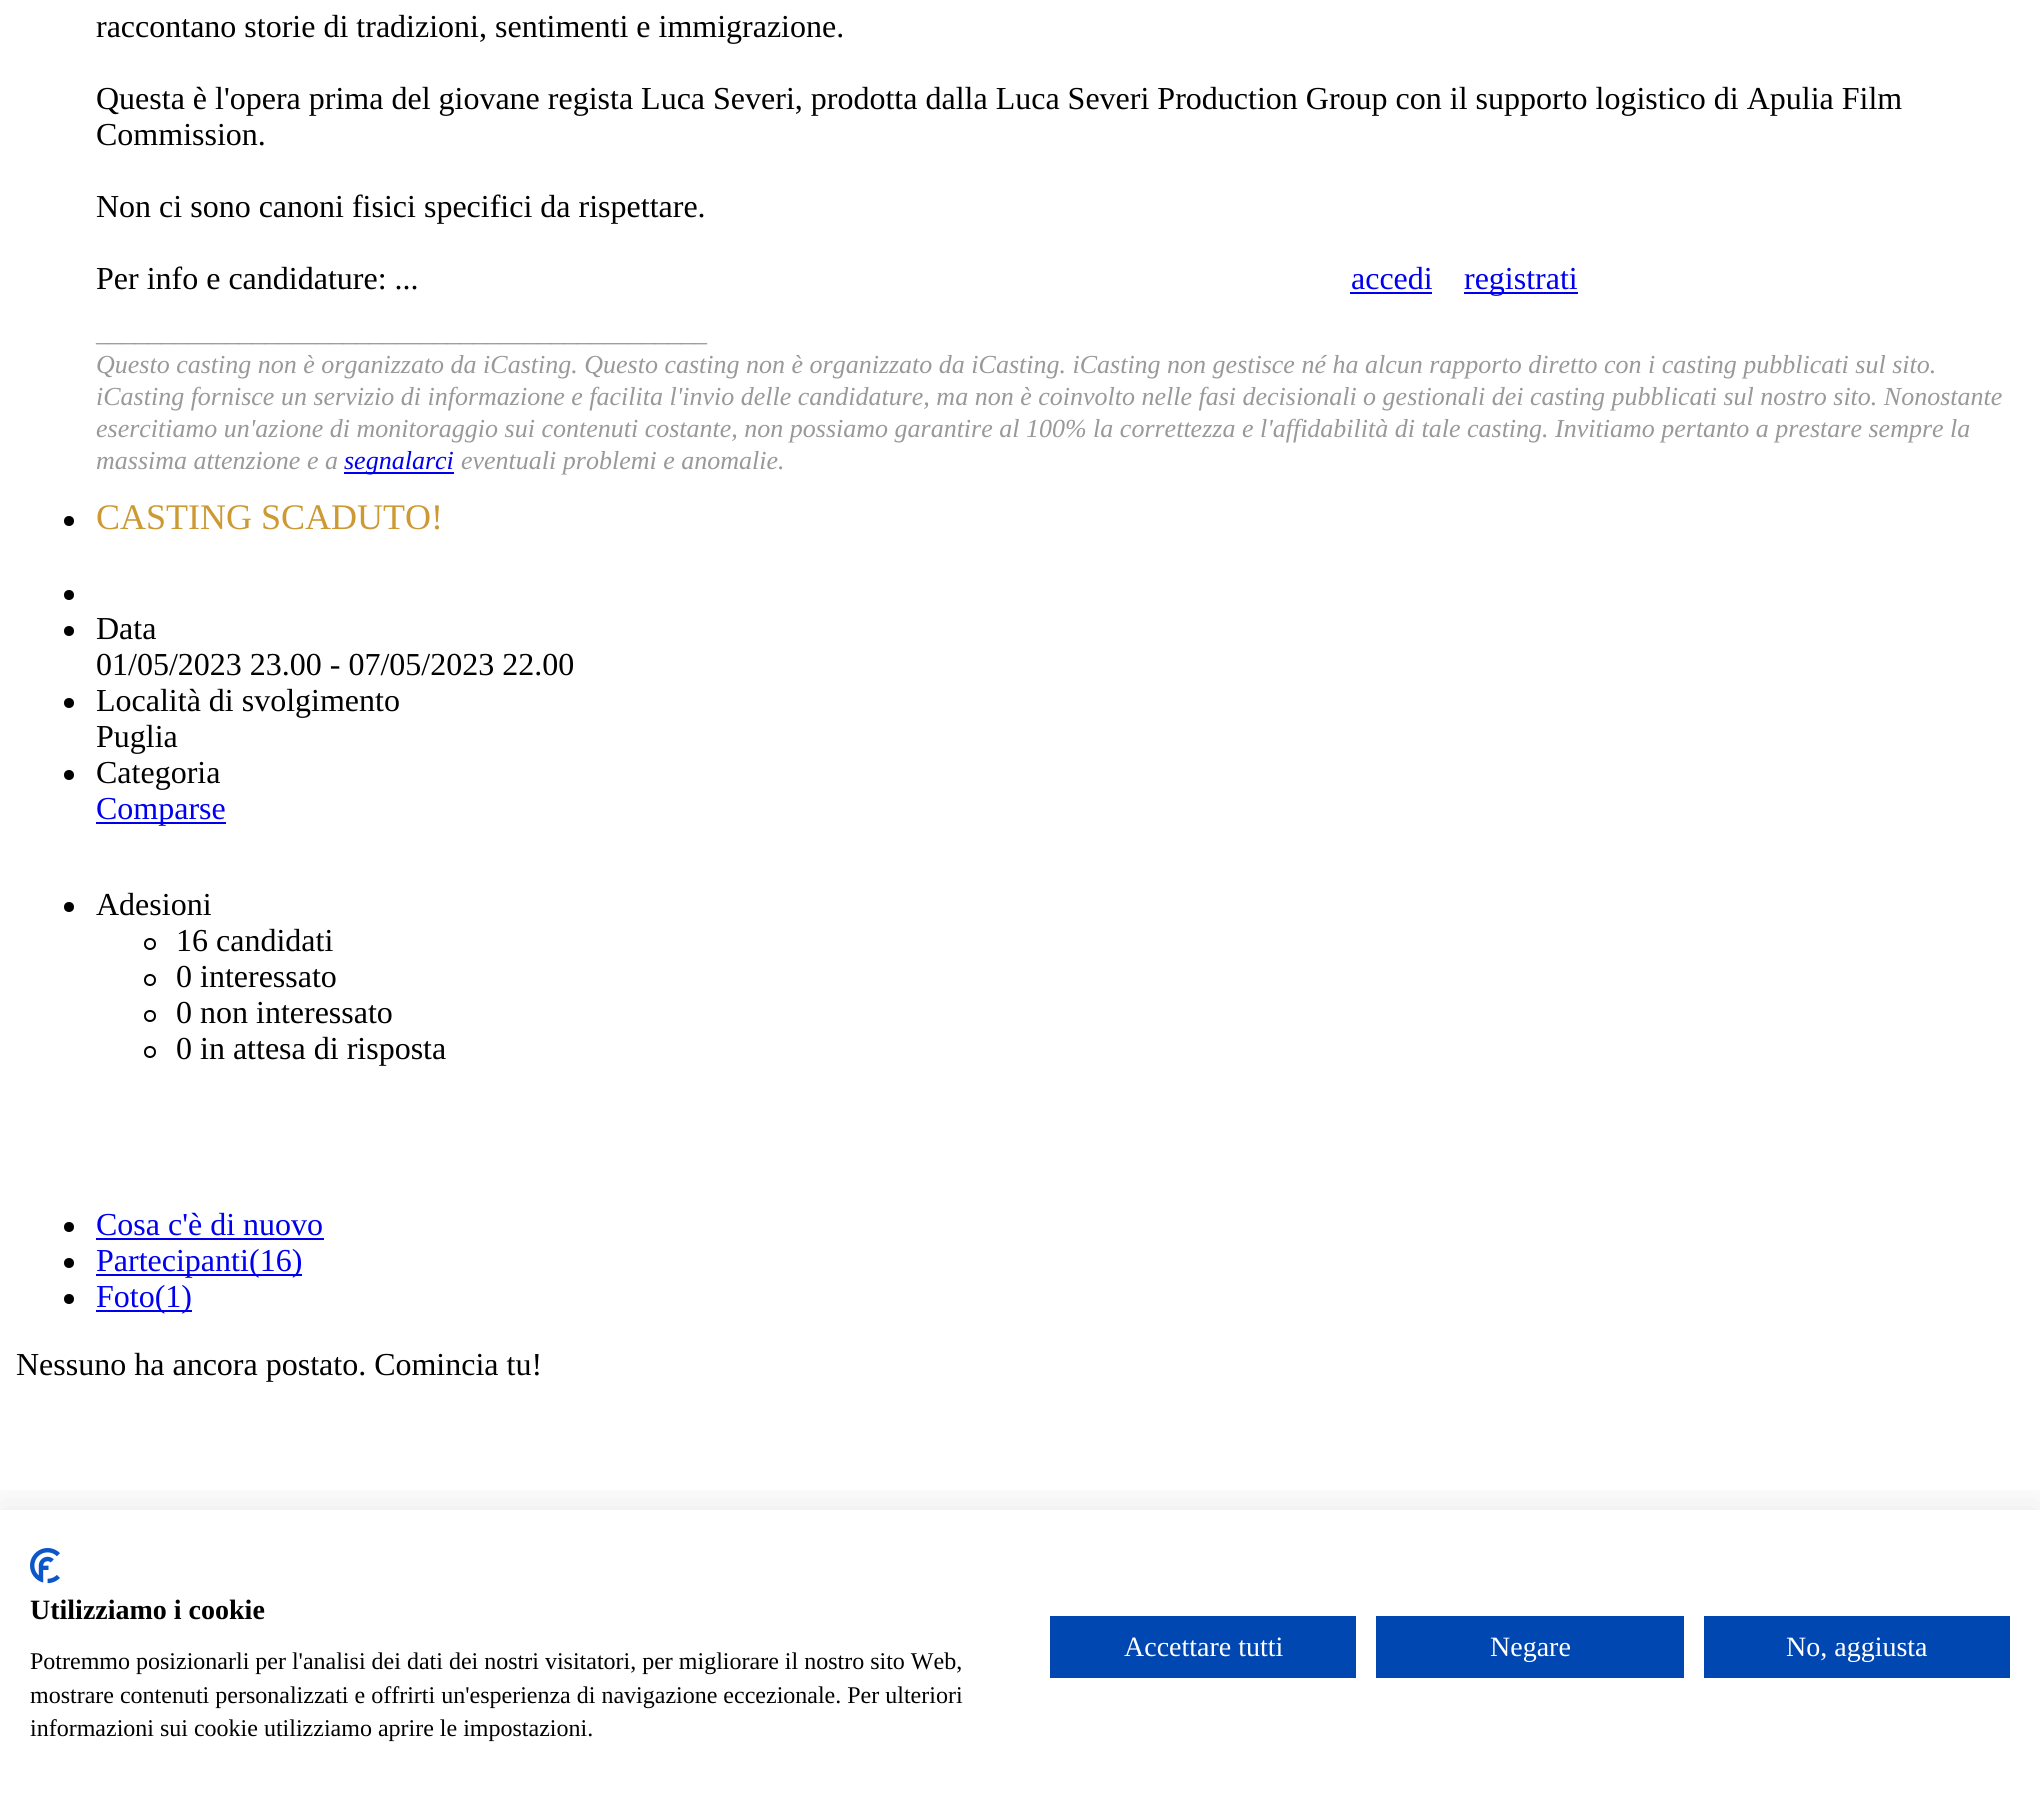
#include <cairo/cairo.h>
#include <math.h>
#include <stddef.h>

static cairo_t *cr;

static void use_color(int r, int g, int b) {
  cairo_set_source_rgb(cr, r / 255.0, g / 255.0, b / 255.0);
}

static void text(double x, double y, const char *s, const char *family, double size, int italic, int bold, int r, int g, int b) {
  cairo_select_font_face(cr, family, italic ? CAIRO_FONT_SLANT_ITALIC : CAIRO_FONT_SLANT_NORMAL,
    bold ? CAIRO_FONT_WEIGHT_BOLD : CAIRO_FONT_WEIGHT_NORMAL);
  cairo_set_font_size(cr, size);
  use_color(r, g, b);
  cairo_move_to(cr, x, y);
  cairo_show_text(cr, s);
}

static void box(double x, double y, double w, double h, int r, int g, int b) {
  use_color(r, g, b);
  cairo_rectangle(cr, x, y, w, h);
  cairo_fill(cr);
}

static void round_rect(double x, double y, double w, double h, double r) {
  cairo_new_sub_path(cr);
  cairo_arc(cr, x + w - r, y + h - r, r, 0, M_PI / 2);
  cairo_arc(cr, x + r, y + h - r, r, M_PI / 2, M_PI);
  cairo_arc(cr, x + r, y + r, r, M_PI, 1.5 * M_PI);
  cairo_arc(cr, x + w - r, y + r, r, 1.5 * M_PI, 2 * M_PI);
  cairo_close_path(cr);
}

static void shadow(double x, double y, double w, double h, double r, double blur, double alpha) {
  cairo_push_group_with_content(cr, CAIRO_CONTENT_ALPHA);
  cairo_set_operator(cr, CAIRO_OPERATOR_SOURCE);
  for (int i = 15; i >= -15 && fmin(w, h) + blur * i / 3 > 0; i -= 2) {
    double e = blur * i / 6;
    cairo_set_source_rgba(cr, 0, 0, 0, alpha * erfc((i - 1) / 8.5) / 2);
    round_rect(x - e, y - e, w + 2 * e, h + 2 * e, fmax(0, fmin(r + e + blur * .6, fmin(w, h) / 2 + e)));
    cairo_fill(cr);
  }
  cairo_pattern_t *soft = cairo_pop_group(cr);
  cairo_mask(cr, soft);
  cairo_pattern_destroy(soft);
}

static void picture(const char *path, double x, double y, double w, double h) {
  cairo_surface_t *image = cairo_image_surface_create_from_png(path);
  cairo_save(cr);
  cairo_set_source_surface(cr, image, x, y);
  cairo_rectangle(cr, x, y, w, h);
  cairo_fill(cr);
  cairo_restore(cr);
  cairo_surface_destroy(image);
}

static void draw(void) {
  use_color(255, 255, 255);
  cairo_paint(cr);
  box(1350, 292, 82, 2, 0, 0, 238);
  box(1464, 292, 114, 2, 0, 0, 238);
  box(344, 472, 110, 2, 0, 0, 238);
  use_color(0, 0, 0);
  cairo_arc(cr, 69, 521, 5, 0, 2 * M_PI);
  cairo_fill(cr);
  cairo_arc(cr, 69, 595, 5, 0, 2 * M_PI);
  cairo_fill(cr);
  cairo_arc(cr, 69, 631, 5, 0, 2 * M_PI);
  cairo_fill(cr);
  cairo_arc(cr, 69, 703, 5, 0, 2 * M_PI);
  cairo_fill(cr);
  cairo_arc(cr, 69, 775, 5, 0, 2 * M_PI);
  cairo_fill(cr);
  box(96, 822, 130, 2, 0, 0, 238);
  use_color(0, 0, 0);
  cairo_arc(cr, 69, 907, 5, 0, 2 * M_PI);
  cairo_fill(cr);
  cairo_arc(cr, 150, 944, 5, 0, 2 * M_PI);
  cairo_stroke(cr);
  cairo_arc(cr, 150, 980, 5, 0, 2 * M_PI);
  cairo_stroke(cr);
  cairo_arc(cr, 150, 1016, 5, 0, 2 * M_PI);
  cairo_stroke(cr);
  cairo_arc(cr, 150, 1052, 5, 0, 2 * M_PI);
  cairo_stroke(cr);
  cairo_arc(cr, 69, 1227, 5, 0, 2 * M_PI);
  cairo_fill(cr);
  box(96, 1238, 228, 2, 0, 0, 238);
  use_color(0, 0, 0);
  cairo_arc(cr, 69, 1263, 5, 0, 2 * M_PI);
  cairo_fill(cr);
  box(96, 1274, 152, 2, 0, 0, 238);
  box(248, 1274, 54, 2, 0, 0, 238);
  use_color(0, 0, 0);
  cairo_arc(cr, 69, 1299, 5, 0, 2 * M_PI);
  cairo_fill(cr);
  box(96, 1310, 96, 2, 0, 0, 238);
  cairo_save(cr);
  cairo_rectangle(cr, 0, 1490, 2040, 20);
  cairo_clip(cr);
  use_color(0, 0, 0);
  shadow(0, 1510, 2040, 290, 0, 24, 0.1);
  cairo_restore(cr);
  picture("img_01.png", 30, 1548, 30, 36);
  box(1050, 1616, 306, 62, 0, 71, 178);
  box(1376, 1616, 308, 62, 0, 71, 178);
  box(1704, 1616, 306, 62, 0, 71, 178);
  text(96, 37, "raccontano storie di tradizioni, sentimenti e immigrazione.", "Liberation Serif", 32, 0, 0, 0, 0, 0);
  text(96, 109, "Questa è l'opera prima del giovane regista Luca Severi, prodotta dalla Luca Severi Production Group con il supporto logistico di Apulia Film", "Liberation Serif", 32, 0, 0, 0, 0, 0);
  text(96, 145, "Commission.", "Liberation Serif", 32, 0, 0, 0, 0, 0);
  text(96, 217, "Non ci sono canoni fisici specifici da rispettare.", "Liberation Serif", 32, 0, 0, 0, 0, 0);
  text(96, 289, "Per info e candidature: ...", "Liberation Serif", 32, 0, 0, 0, 0, 0);
  text(1351, 289, "accedi", "Liberation Serif", 32, 0, 0, 0, 0, 238);
  text(1464, 289, "registrati", "Liberation Serif", 32, 0, 0, 0, 0, 238);
  text(96, 341, "_______________________________________________", "Liberation Serif", 26, 1, 0, 153, 153, 153);
  text(96, 373, "Questo casting non è organizzato da iCasting. Questo casting non è organizzato da iCasting. iCasting non gestisce né ha alcun rapporto diretto con i casting pubblicati sul sito.", "Liberation Serif", 26, 1, 0, 153, 153, 153);
  text(96, 405, "iCasting fornisce un servizio di informazione e facilita l'invio delle candidature, ma non è coinvolto nelle fasi decisionali o gestionali dei casting pubblicati sul nostro sito. Nonostante", "Liberation Serif", 26, 1, 0, 153, 153, 153);
  text(96, 437, "esercitiamo un'azione di monitoraggio sui contenuti costante, non possiamo garantire al 100% la correttezza e l'affidabilità di tale casting. Invitiamo pertanto a prestare sempre la", "Liberation Serif", 26, 1, 0, 153, 153, 153);
  text(96, 469, "massima attenzione e a", "Liberation Serif", 26, 1, 0, 153, 153, 153);
  text(344, 469, "segnalarci", "Liberation Serif", 26, 1, 0, 0, 0, 238);
  text(461, 469, "eventuali problemi e anomalie.", "Liberation Serif", 26, 1, 0, 153, 153, 153);
  text(96, 529, "CASTING SCADUTO!", "Liberation Serif", 36, 0, 0, 204, 153, 50);
  text(96, 639, "Data", "Liberation Serif", 32, 0, 0, 0, 0, 0);
  text(96, 675, "01/05/2023 23.00 - 07/05/2023 22.00", "Liberation Serif", 32, 0, 0, 0, 0, 0);
  text(96, 711, "Località di svolgimento", "Liberation Serif", 32, 0, 0, 0, 0, 0);
  text(96, 747, "Puglia", "Liberation Serif", 32, 0, 0, 0, 0, 0);
  text(96, 783, "Categoria", "Liberation Serif", 32, 0, 0, 0, 0, 0);
  text(96, 819, "Comparse", "Liberation Serif", 32, 0, 0, 0, 0, 238);
  text(96, 915, "Adesioni", "Liberation Serif", 32, 0, 0, 0, 0, 0);
  text(176, 951, "16 candidati", "Liberation Serif", 32, 0, 0, 0, 0, 0);
  text(176, 987, "0 interessato", "Liberation Serif", 32, 0, 0, 0, 0, 0);
  text(176, 1023, "0 non interessato", "Liberation Serif", 32, 0, 0, 0, 0, 0);
  text(176, 1059, "0 in attesa di risposta", "Liberation Serif", 32, 0, 0, 0, 0, 0);
  text(96, 1235, "Cosa c'è di nuovo", "Liberation Serif", 32, 0, 0, 0, 0, 238);
  text(96, 1271, "Partecipanti", "Liberation Serif", 32, 0, 0, 0, 0, 238);
  text(249, 1271, "(16)", "Liberation Serif", 32, 0, 0, 0, 0, 238);
  text(96, 1307, "Foto(1)", "Liberation Serif", 32, 0, 0, 0, 0, 238);
  text(16, 1375, "Nessuno ha ancora postato. Comincia tu!", "Liberation Serif", 32, 0, 0, 0, 0, 0);
  text(30, 1619, "Utilizziamo i cookie", "Liberation Serif", 28, 0, 1, 0, 0, 0);
  text(30, 1669, "Potremmo posizionarli per l'analisi dei dati dei nostri visitatori, per migliorare il nostro sito Web,", "Liberation Serif", 24, 0, 0, 0, 0, 0);
  text(30, 1703, "mostrare contenuti personalizzati e offrirti un'esperienza di navigazione eccezionale. Per ulteriori", "Liberation Serif", 24, 0, 0, 0, 0, 0);
  text(30, 1736, "informazioni sui cookie utilizziamo aprire le impostazioni.", "Liberation Serif", 24, 0, 0, 0, 0, 0);
  text(1124, 1656, "Accettare tutti", "Liberation Serif", 28, 0, 0, 255, 255, 255);
  text(1490, 1656, "Negare", "Liberation Serif", 28, 0, 0, 255, 255, 255);
  text(1786, 1656, "No, aggiusta", "Liberation Serif", 28, 0, 0, 255, 255, 255);
}

int main(void) {
  cairo_surface_t *surface = cairo_image_surface_create(CAIRO_FORMAT_RGB24, 2040, 1799);
  cr = cairo_create(surface);
  cairo_font_options_t *options = cairo_font_options_create();
  cairo_font_options_set_hint_metrics(options, CAIRO_HINT_METRICS_OFF);
  cairo_font_options_set_hint_style(options, CAIRO_HINT_STYLE_NONE);
  cairo_set_font_options(cr, options);
  cairo_set_miter_limit(cr, 4);
  draw();
  cairo_surface_write_to_png(surface, "out.png");
  cairo_font_options_destroy(options);
  cairo_destroy(cr);
  cairo_surface_destroy(surface);
  return 0;
}
